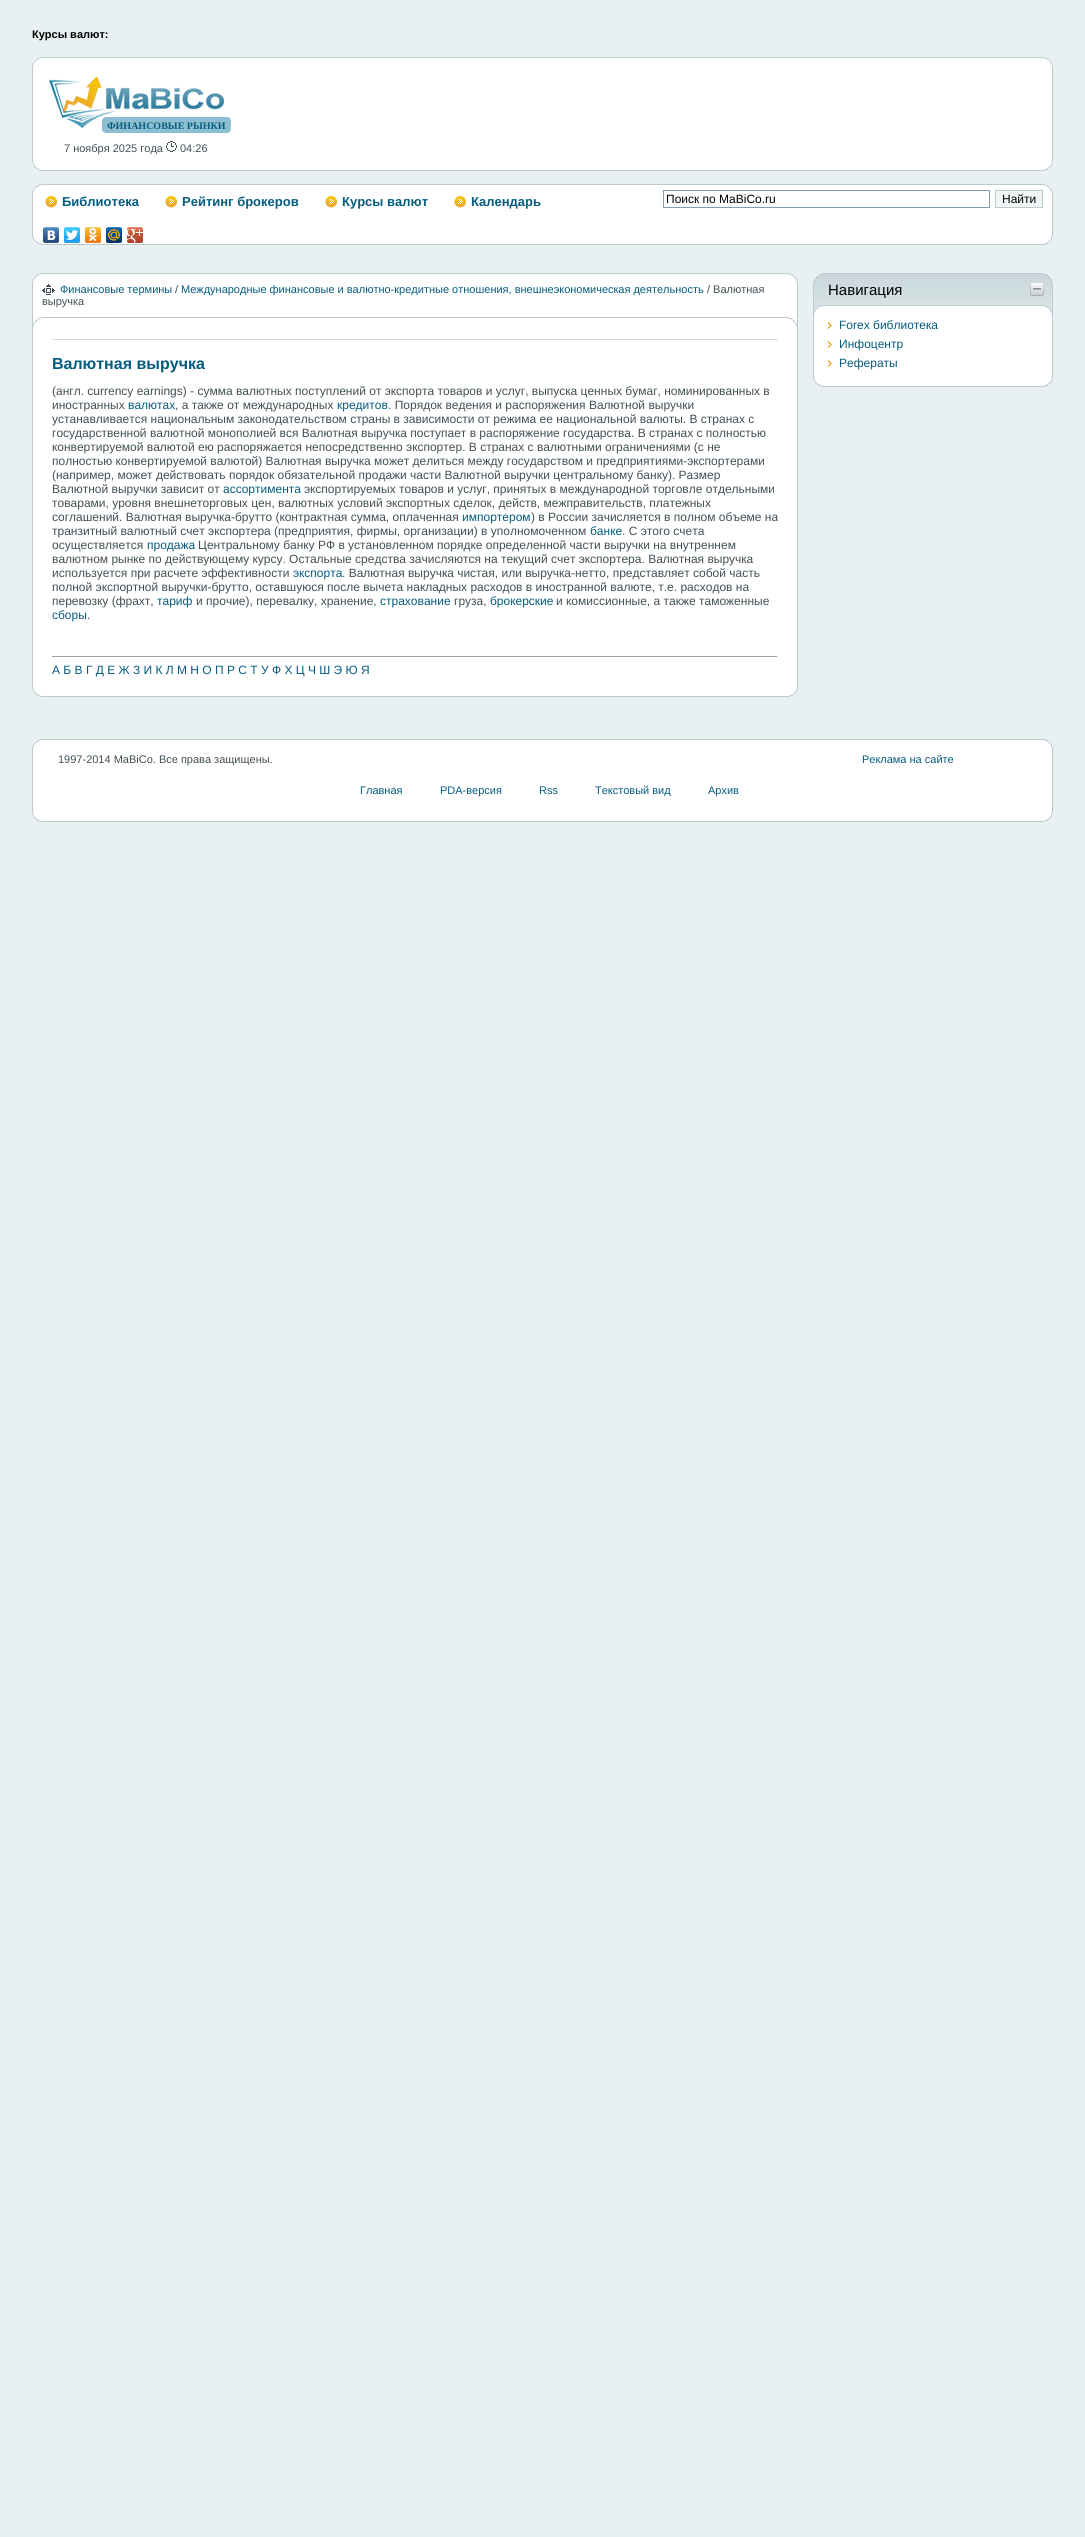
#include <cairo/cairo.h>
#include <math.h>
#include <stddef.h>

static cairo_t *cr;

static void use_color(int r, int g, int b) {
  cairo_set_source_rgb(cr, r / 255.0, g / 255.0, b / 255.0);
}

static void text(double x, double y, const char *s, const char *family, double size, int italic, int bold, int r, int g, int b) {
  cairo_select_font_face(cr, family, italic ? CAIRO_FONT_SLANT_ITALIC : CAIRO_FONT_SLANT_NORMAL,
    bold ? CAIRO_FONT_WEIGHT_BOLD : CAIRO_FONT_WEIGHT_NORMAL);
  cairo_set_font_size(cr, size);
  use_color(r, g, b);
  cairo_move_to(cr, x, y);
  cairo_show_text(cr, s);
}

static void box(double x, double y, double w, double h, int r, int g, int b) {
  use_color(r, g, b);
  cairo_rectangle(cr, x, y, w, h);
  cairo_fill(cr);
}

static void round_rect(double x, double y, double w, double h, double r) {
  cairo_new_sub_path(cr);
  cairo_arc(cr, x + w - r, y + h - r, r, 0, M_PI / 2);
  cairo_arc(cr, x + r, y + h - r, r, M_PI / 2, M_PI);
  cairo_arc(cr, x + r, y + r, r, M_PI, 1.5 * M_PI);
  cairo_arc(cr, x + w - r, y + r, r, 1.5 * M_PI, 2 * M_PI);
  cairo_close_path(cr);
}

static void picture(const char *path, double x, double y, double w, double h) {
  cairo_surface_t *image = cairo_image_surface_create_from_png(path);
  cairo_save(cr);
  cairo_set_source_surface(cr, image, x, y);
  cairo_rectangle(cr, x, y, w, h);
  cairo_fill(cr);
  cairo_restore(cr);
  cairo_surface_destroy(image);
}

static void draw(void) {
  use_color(233, 240, 242);
  cairo_paint(cr);
  picture("img_01.png", 42, 57, 1011, 103);
  picture("img_02.png", 32, 57, 10, 103);
  picture("img_03.png", 42, 160, 1011, 11);
  picture("img_04.png", 32, 160, 10, 11);
  picture("img_05.png", 49, 77, 175, 51);
  use_color(142, 190, 209);
  round_rect(102, 117, 129, 16, 4);
  cairo_fill(cr);
  picture("img_06.png", 166, 141, 11, 11);
  picture("img_07.png", 42, 184, 1011, 50);
  picture("img_08.png", 32, 184, 10, 50);
  picture("img_03.png", 42, 234, 1011, 11);
  picture("img_04.png", 32, 234, 10, 11);
  picture("img_09.png", 45, 196, 12, 12);
  picture("img_09.png", 165, 196, 12, 12);
  picture("img_09.png", 325, 196, 12, 12);
  picture("img_09.png", 454, 196, 12, 12);
  picture("img_10.png", 43, 227, 16, 16);
  picture("img_11.png", 64, 227, 16, 16);
  picture("img_12.png", 85, 227, 16, 16);
  picture("img_13.png", 106, 227, 16, 16);
  picture("img_14.png", 127, 227, 16, 16);
  cairo_rectangle(cr, 663.5, 190.5, 326, 17);
  use_color(127, 157, 185);
  cairo_set_line_width(cr, 1);
  cairo_stroke(cr);
  use_color(241, 245, 246);
  cairo_rectangle(cr, 995.5, 190.5, 47, 17);
  cairo_fill_preserve(cr);
  use_color(188, 201, 205);
  cairo_stroke(cr);
  picture("img_15.png", 42, 273, 756, 413);
  picture("img_16.png", 32, 273, 10, 413);
  picture("img_17.png", 42, 686, 756, 11);
  picture("img_04.png", 32, 686, 10, 11);
  picture("img_18.png", 42, 284, 13, 11);
  picture("img_19.png", 33, 317, 754, 12);
  picture("img_20.png", 787, 317, 11, 12);
  box(52, 339, 726, 1, 212, 220, 223);
  box(52, 656, 726, 1, 159, 159, 159);
  box(777, 656, 1, 1, 238, 238, 238);
  picture("img_21.png", 813, 273, 229, 33);
  picture("img_22.png", 1042, 273, 11, 33);
  picture("img_23.png", 1030, 282, 14, 14);
  box(823, 306, 220, 70, 255, 255, 255);
  picture("img_24.png", 1043, 306, 10, 70);
  picture("img_25.png", 813, 306, 10, 70);
  picture("img_26.png", 823, 376, 230, 11);
  picture("img_27.png", 813, 376, 10, 11);
  picture("img_28.png", 828, 322, 4, 7);
  picture("img_28.png", 828, 341, 4, 7);
  picture("img_28.png", 828, 360, 4, 7);
  picture("img_29.png", 42, 739, 1011, 72);
  picture("img_30.png", 32, 739, 10, 72);
  picture("img_03.png", 42, 811, 1011, 11);
  picture("img_04.png", 32, 811, 10, 11);
  text(32, 38, "Курсы валют:", "Liberation Sans", 11, 0, 1, 0, 0, 0);
  text(107, 129, "ФИНАНСОВЫЕ РЫНКИ", "Liberation Serif", 10, 0, 1, 5, 92, 126);
  text(64, 152, "7 ноября 2025 года", "Liberation Sans", 11, 0, 0, 66, 80, 86);
  text(180, 152, "04:26", "Liberation Sans", 11, 0, 0, 66, 80, 86);
  text(62, 206, "Библиотека", "Liberation Sans", 13, 0, 1, 5, 92, 126);
  text(182, 206, "Рейтинг брокеров", "Liberation Sans", 13, 0, 1, 5, 92, 126);
  text(342, 206, "Курсы валют", "Liberation Sans", 13, 0, 1, 5, 92, 126);
  text(471, 206, "Календарь", "Liberation Sans", 13, 0, 1, 5, 92, 126);
  text(666, 203, "Поиск по MaBiCo.ru", "Liberation Sans", 12, 0, 0, 0, 0, 0);
  text(1002, 203, "Найти", "Liberation Sans", 12, 0, 0, 0, 0, 0);
  text(60, 293, "Финансовые термины", "Liberation Sans", 11, 0, 0, 5, 92, 126);
  text(175, 293, "/", "Liberation Sans", 11, 0, 0, 66, 80, 86);
  text(181, 293, "Международные финансовые и валютно-кредитные отношения, внешнеэкономическая деятельность", "Liberation Sans", 11, 0, 0, 5, 92, 126);
  text(707, 293, "/ Валютная", "Liberation Sans", 11, 0, 0, 66, 80, 86);
  text(42, 305, "выручка", "Liberation Sans", 11, 0, 0, 66, 80, 86);
  text(52, 369, "Валютная выручка", "Liberation Sans", 16, 0, 1, 5, 92, 126);
  text(52, 395, "(англ. currency earnings) - сумма валютных поступлений от экспорта товаров и услуг, выпуска ценных бумаг, номинированных в", "Liberation Sans", 12, 0, 0, 66, 80, 86);
  text(52, 409, "иностранных", "Liberation Sans", 12, 0, 0, 66, 80, 86);
  text(128, 409, "валютах", "Liberation Sans", 12, 0, 0, 5, 92, 126);
  text(175, 409, ", а также от международных", "Liberation Sans", 12, 0, 0, 66, 80, 86);
  text(337, 409, "кредитов", "Liberation Sans", 12, 0, 0, 5, 92, 126);
  text(388, 409, ". Порядок ведения и распоряжения Валютной выручки", "Liberation Sans", 12, 0, 0, 66, 80, 86);
  text(52, 423, "устанавливается национальным законодательством страны в зависимости от режима ее национальной валюты. В странах с", "Liberation Sans", 12, 0, 0, 66, 80, 86);
  text(52, 437, "государственной валютной монополией вся Валютная выручка поступает в распоряжение государства. В странах с полностью", "Liberation Sans", 12, 0, 0, 66, 80, 86);
  text(52, 451, "конвертируемой валютой ею распоряжается непосредственно экспортер. В странах с валютными ограничениями (с не", "Liberation Sans", 12, 0, 0, 66, 80, 86);
  text(52, 465, "полностью конвертируемой валютой) Валютная выручка может делиться между государством и предприятиями-экспортерами", "Liberation Sans", 12, 0, 0, 66, 80, 86);
  text(52, 479, "(например, может действовать порядок обязательной продажи части Валютной выручки центральному банку). Размер", "Liberation Sans", 12, 0, 0, 66, 80, 86);
  text(52, 493, "Валютной выручки зависит от", "Liberation Sans", 12, 0, 0, 66, 80, 86);
  text(223, 493, "ассортимента", "Liberation Sans", 12, 0, 0, 5, 92, 126);
  text(304, 493, "экспортируемых товаров и услуг, принятых в международной торговле отдельными", "Liberation Sans", 12, 0, 0, 66, 80, 86);
  text(52, 507, "товарами, уровня внешнеторговых цен, валютных условий экспортных сделок, действ, межправительств, платежных", "Liberation Sans", 12, 0, 0, 66, 80, 86);
  text(52, 521, "соглашений. Валютная выручка-брутто (контрактная сумма, оплаченная", "Liberation Sans", 12, 0, 0, 66, 80, 86);
  text(462, 521, "импортером", "Liberation Sans", 12, 0, 0, 5, 92, 126);
  text(531, 521, ") в России зачисляется в полном объеме на", "Liberation Sans", 12, 0, 0, 66, 80, 86);
  text(52, 535, "транзитный валютный счет экспортера (предприятия, фирмы, организации) в уполномоченном", "Liberation Sans", 12, 0, 0, 66, 80, 86);
  text(590, 535, "банке", "Liberation Sans", 12, 0, 0, 5, 92, 126);
  text(622, 535, ". С этого счета", "Liberation Sans", 12, 0, 0, 66, 80, 86);
  text(52, 549, "осуществляется", "Liberation Sans", 12, 0, 0, 66, 80, 86);
  text(147, 549, "продажа", "Liberation Sans", 12, 0, 0, 5, 92, 126);
  text(198, 549, "Центральному банку РФ в установленном порядке определенной части выручки на внутреннем", "Liberation Sans", 12, 0, 0, 66, 80, 86);
  text(52, 563, "валютном рынке по действующему курсу. Остальные средства зачисляются на текущий счет экспортера. Валютная выручка", "Liberation Sans", 12, 0, 0, 66, 80, 86);
  text(52, 577, "используется при расчете эффективности", "Liberation Sans", 12, 0, 0, 66, 80, 86);
  text(293, 577, "экспорта", "Liberation Sans", 12, 0, 0, 5, 92, 126);
  text(342, 577, ". Валютная выручка чистая, или выручка-нетто, представляет собой часть", "Liberation Sans", 12, 0, 0, 66, 80, 86);
  text(52, 591, "полной экспортной выручки-брутто, оставшуюся после вычета накладных расходов в иностранной валюте, т.е. расходов на", "Liberation Sans", 12, 0, 0, 66, 80, 86);
  text(52, 605, "перевозку (фрахт,", "Liberation Sans", 12, 0, 0, 66, 80, 86);
  text(157, 605, "тариф", "Liberation Sans", 12, 0, 0, 5, 92, 126);
  text(196, 605, "и прочие), перевалку, хранение,", "Liberation Sans", 12, 0, 0, 66, 80, 86);
  text(380, 605, "страхование", "Liberation Sans", 12, 0, 0, 5, 92, 126);
  text(454, 605, "груза,", "Liberation Sans", 12, 0, 0, 66, 80, 86);
  text(490, 605, "брокерские", "Liberation Sans", 12, 0, 0, 5, 92, 126);
  text(556, 605, "и комиссионные, а также таможенные", "Liberation Sans", 12, 0, 0, 66, 80, 86);
  text(52, 619, "сборы", "Liberation Sans", 12, 0, 0, 5, 92, 126);
  text(87, 619, ".", "Liberation Sans", 12, 0, 0, 66, 80, 86);
  text(52, 674, "А Б В Г Д Е Ж З И К Л М Н О П Р С Т У Ф Х Ц Ч Ш Э Ю Я", "Liberation Sans", 12, 0, 0, 5, 92, 126);
  text(828, 295, "Навигация", "Liberation Sans", 15, 0, 0, 0, 0, 0);
  text(839, 329, "Forex библиотека", "Liberation Sans", 12, 0, 0, 5, 92, 126);
  text(839, 348, "Инфоцентр", "Liberation Sans", 12, 0, 0, 5, 92, 126);
  text(839, 367, "Рефераты", "Liberation Sans", 12, 0, 0, 5, 92, 126);
  text(58, 763, "1997-2014 MaBiCo. Все права защищены.", "Liberation Sans", 11, 0, 0, 66, 80, 86);
  text(862, 763, "Реклама на сайте", "Liberation Sans", 11, 0, 0, 5, 92, 126);
  text(360, 794, "Главная", "Liberation Sans", 11, 0, 0, 5, 92, 126);
  text(440, 794, "PDA-версия", "Liberation Sans", 11, 0, 0, 5, 92, 126);
  text(539, 794, "Rss", "Liberation Sans", 11, 0, 0, 5, 92, 126);
  text(595, 794, "Текстовый вид", "Liberation Sans", 11, 0, 0, 5, 92, 126);
  text(708, 794, "Архив", "Liberation Sans", 11, 0, 0, 5, 92, 126);
}

int main(void) {
  cairo_surface_t *surface = cairo_image_surface_create(CAIRO_FORMAT_RGB24, 1085, 2537);
  cr = cairo_create(surface);
  cairo_font_options_t *options = cairo_font_options_create();
  cairo_font_options_set_hint_metrics(options, CAIRO_HINT_METRICS_OFF);
  cairo_font_options_set_hint_style(options, CAIRO_HINT_STYLE_NONE);
  cairo_set_font_options(cr, options);
  cairo_set_miter_limit(cr, 4);
  draw();
  cairo_surface_write_to_png(surface, "out.png");
  cairo_font_options_destroy(options);
  cairo_destroy(cr);
  cairo_surface_destroy(surface);
  return 0;
}
